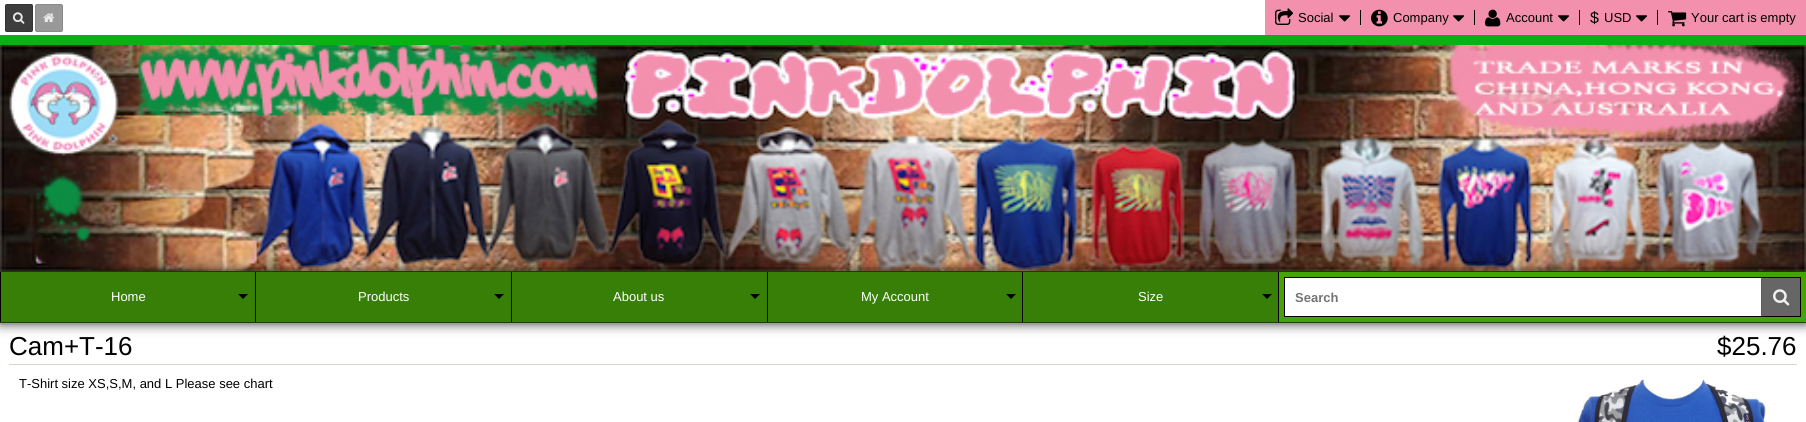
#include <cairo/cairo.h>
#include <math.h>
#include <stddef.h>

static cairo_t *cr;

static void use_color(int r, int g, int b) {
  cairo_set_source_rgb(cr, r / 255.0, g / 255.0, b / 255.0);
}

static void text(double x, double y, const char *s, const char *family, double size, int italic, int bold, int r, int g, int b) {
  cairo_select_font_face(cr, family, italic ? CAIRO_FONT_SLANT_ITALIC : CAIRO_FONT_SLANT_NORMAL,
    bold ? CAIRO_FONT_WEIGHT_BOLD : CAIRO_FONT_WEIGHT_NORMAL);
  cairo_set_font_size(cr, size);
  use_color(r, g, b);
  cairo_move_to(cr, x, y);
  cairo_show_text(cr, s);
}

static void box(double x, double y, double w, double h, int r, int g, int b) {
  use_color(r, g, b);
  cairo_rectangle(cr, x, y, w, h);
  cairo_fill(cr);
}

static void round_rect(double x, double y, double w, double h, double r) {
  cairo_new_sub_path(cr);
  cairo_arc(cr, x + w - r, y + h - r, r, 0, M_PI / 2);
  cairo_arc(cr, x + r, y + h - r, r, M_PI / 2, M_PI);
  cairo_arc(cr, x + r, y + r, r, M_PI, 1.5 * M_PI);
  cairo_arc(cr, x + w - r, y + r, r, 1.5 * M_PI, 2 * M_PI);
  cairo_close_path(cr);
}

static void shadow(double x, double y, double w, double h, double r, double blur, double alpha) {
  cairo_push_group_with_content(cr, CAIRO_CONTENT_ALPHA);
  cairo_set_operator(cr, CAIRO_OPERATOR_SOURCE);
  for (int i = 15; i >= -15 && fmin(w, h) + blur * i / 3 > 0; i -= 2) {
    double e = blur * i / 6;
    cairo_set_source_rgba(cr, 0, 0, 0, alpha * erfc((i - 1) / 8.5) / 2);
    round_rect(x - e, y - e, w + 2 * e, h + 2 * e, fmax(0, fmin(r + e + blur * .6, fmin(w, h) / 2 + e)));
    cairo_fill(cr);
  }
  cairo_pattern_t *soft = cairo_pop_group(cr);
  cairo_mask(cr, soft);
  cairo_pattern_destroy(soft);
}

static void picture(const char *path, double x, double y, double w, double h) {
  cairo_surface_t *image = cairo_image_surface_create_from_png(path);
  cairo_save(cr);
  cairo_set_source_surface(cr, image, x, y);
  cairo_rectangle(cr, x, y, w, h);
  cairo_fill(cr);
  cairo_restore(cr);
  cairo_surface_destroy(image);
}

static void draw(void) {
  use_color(255, 255, 255);
  cairo_paint(cr);
  box(0, 35, 1806, 10, 10, 176, 21);
  use_color(102, 102, 102);
  round_rect(5, 4, 28, 28, 2);
  cairo_fill(cr);
  round_rect(5.5, 4.5, 27, 27, 1.5);
  cairo_set_source_rgba(cr, 0, 0, 0, 0.1);
  cairo_set_line_width(cr, 1);
  cairo_stroke(cr);
  picture("img_01.png", 13, 12, 12, 12);
  cairo_set_source_rgba(cr, 0, 0, 0, 0.4);
  round_rect(5, 4, 28, 28, 2);
  cairo_fill(cr);
  round_rect(5.5, 4.5, 27, 27, 1.5);
  cairo_set_source_rgba(cr, 0, 0, 0, 0.1);
  cairo_stroke(cr);
  picture("img_02.png", 13, 12, 12, 12);
  use_color(153, 153, 153);
  round_rect(35, 4, 28, 28, 2);
  cairo_fill(cr);
  round_rect(35.5, 4.5, 27, 27, 1.5);
  cairo_set_source_rgba(cr, 0, 0, 0, 0.1);
  cairo_stroke(cr);
  picture("img_03.png", 43, 13, 12, 9);
  box(1265, 0, 541, 35, 243, 144, 174);
  picture("img_04.png", 1275, 8, 19, 17);
  picture("img_05.png", 1339, 15, 12, 7);
  box(1360, 10, 1, 15, 0, 0, 0);
  picture("img_06.png", 1371, 9, 17, 18);
  picture("img_05.png", 1453, 15, 12, 7);
  box(1474, 10, 1, 15, 0, 0, 0);
  picture("img_07.png", 1485, 9, 16, 18);
  picture("img_05.png", 1558, 15, 12, 7);
  box(1579, 10, 1, 15, 0, 0, 0);
  picture("img_05.png", 1636, 15, 12, 7);
  box(1657, 10, 1, 15, 0, 0, 0);
  picture("img_08.png", 1668, 11, 19, 16);
  picture("img_09.png", 0, 45, 1806, 226);
  picture("img_10.png", 92, 72, 6, 6);
  box(1279, 272, 527, 50, 69, 163, 6);
  box(0, 271, 1806, 1, 63, 117, 6);
  box(0, 322, 1806, 1, 63, 117, 6);
  cairo_save(cr);
  cairo_set_fill_rule(cr, CAIRO_FILL_RULE_EVEN_ODD);
  cairo_new_path(cr);
  cairo_move_to(cr, 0, 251);
  cairo_line_to(cr, 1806, 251);
  cairo_line_to(cr, 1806, 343);
  cairo_line_to(cr, 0, 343);
  cairo_close_path(cr);
  cairo_move_to(cr, 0, 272);
  cairo_line_to(cr, 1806, 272);
  cairo_line_to(cr, 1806, 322);
  cairo_line_to(cr, 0, 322);
  cairo_close_path(cr);
  cairo_clip(cr);
  use_color(0, 0, 0);
  shadow(0, 272, 1806, 50, 0, 6.5, 1);
  cairo_restore(cr);
  box(1, 272, 254, 50, 56, 127, 8);
  box(255, 272, 1, 50, 0, 0, 0);
  box(0, 272, 1, 50, 0, 0, 0);
  cairo_new_path(cr);
  cairo_move_to(cr, 238, 294);
  cairo_line_to(cr, 248, 294);
  cairo_line_to(cr, 243, 299);
  cairo_close_path(cr);
  cairo_fill(cr);
  box(256, 272, 255, 50, 56, 127, 8);
  box(511, 272, 1, 50, 0, 0, 0);
  cairo_new_path(cr);
  cairo_move_to(cr, 494, 294);
  cairo_line_to(cr, 504, 294);
  cairo_line_to(cr, 499, 299);
  cairo_close_path(cr);
  cairo_fill(cr);
  box(512, 272, 255, 50, 56, 127, 8);
  box(767, 272, 1, 50, 0, 0, 0);
  cairo_new_path(cr);
  cairo_move_to(cr, 750, 294);
  cairo_line_to(cr, 760, 294);
  cairo_line_to(cr, 755, 299);
  cairo_close_path(cr);
  cairo_fill(cr);
  box(768, 272, 254, 50, 56, 127, 8);
  box(1022, 272, 1, 50, 0, 0, 0);
  cairo_new_path(cr);
  cairo_move_to(cr, 1006, 294);
  cairo_line_to(cr, 1016, 294);
  cairo_line_to(cr, 1011, 299);
  cairo_close_path(cr);
  cairo_fill(cr);
  box(1023, 272, 255, 50, 56, 127, 8);
  box(1278, 272, 1, 50, 0, 0, 0);
  cairo_new_path(cr);
  cairo_move_to(cr, 1262, 294);
  cairo_line_to(cr, 1272, 294);
  cairo_line_to(cr, 1267, 299);
  cairo_close_path(cr);
  cairo_fill(cr);
  use_color(255, 255, 255);
  cairo_rectangle(cr, 1284.5, 277.5, 516, 39);
  cairo_fill_preserve(cr);
  use_color(0, 0, 0);
  cairo_stroke(cr);
  cairo_set_source_rgba(cr, 0, 0, 0, 0.6);
  round_rect(1761, 277, 40, 40, 2);
  cairo_fill(cr);
  round_rect(1761.5, 277.5, 39, 39, 1.5);
  cairo_set_source_rgba(cr, 0, 0, 0, 0.1);
  cairo_stroke(cr);
  picture("img_11.png", 1773, 289, 17, 17);
  box(9, 364, 1788, 1, 217, 214, 196);
  picture("img_12.png", 1576, 375, 190, 47);
  text(1298, 22, "Social", "Liberation Sans", 13, 0, 0, 0, 0, 0);
  text(1393, 22, "Company", "Liberation Sans", 13, 0, 0, 0, 0, 0);
  text(1506, 22, "Account", "Liberation Sans", 13, 0, 0, 0, 0, 0);
  text(1590, 23, "$", "Liberation Sans", 16, 0, 0, 0, 0, 0);
  text(1604, 22, "USD", "Liberation Sans", 13, 0, 0, 0, 0, 0);
  text(1691, 22, "Your cart is empty", "Liberation Sans", 13, 0, 0, 0, 0, 0);
  text(111, 301, "Home", "Liberation Sans", 13, 0, 0, 255, 255, 255);
  text(358, 301, "Products", "Liberation Sans", 13, 0, 0, 255, 255, 255);
  text(613, 301, "About us", "Liberation Sans", 13, 0, 0, 255, 255, 255);
  text(861, 301, "My Account", "Liberation Sans", 13, 0, 0, 255, 255, 255);
  text(1138, 301, "Size", "Liberation Sans", 13, 0, 0, 255, 255, 255);
  text(1295, 302, "Search", "Liberation Sans", 13, 0, 1, 117, 117, 117);
  text(9, 355, "Cam+T-16", "Liberation Sans", 26, 0, 0, 0, 0, 0);
  text(1717, 355, "$25.76", "Liberation Sans", 26, 0, 0, 0, 0, 0);
  text(19, 388, "T-Shirt size XS,S,M, and L Please see chart", "Liberation Sans", 13, 0, 0, 0, 0, 0);
}

int main(void) {
  cairo_surface_t *surface = cairo_image_surface_create(CAIRO_FORMAT_RGB24, 1806, 422);
  cr = cairo_create(surface);
  cairo_font_options_t *options = cairo_font_options_create();
  cairo_font_options_set_hint_metrics(options, CAIRO_HINT_METRICS_OFF);
  cairo_font_options_set_hint_style(options, CAIRO_HINT_STYLE_NONE);
  cairo_set_font_options(cr, options);
  cairo_set_miter_limit(cr, 4);
  draw();
  cairo_surface_write_to_png(surface, "out.png");
  cairo_font_options_destroy(options);
  cairo_destroy(cr);
  cairo_surface_destroy(surface);
  return 0;
}
